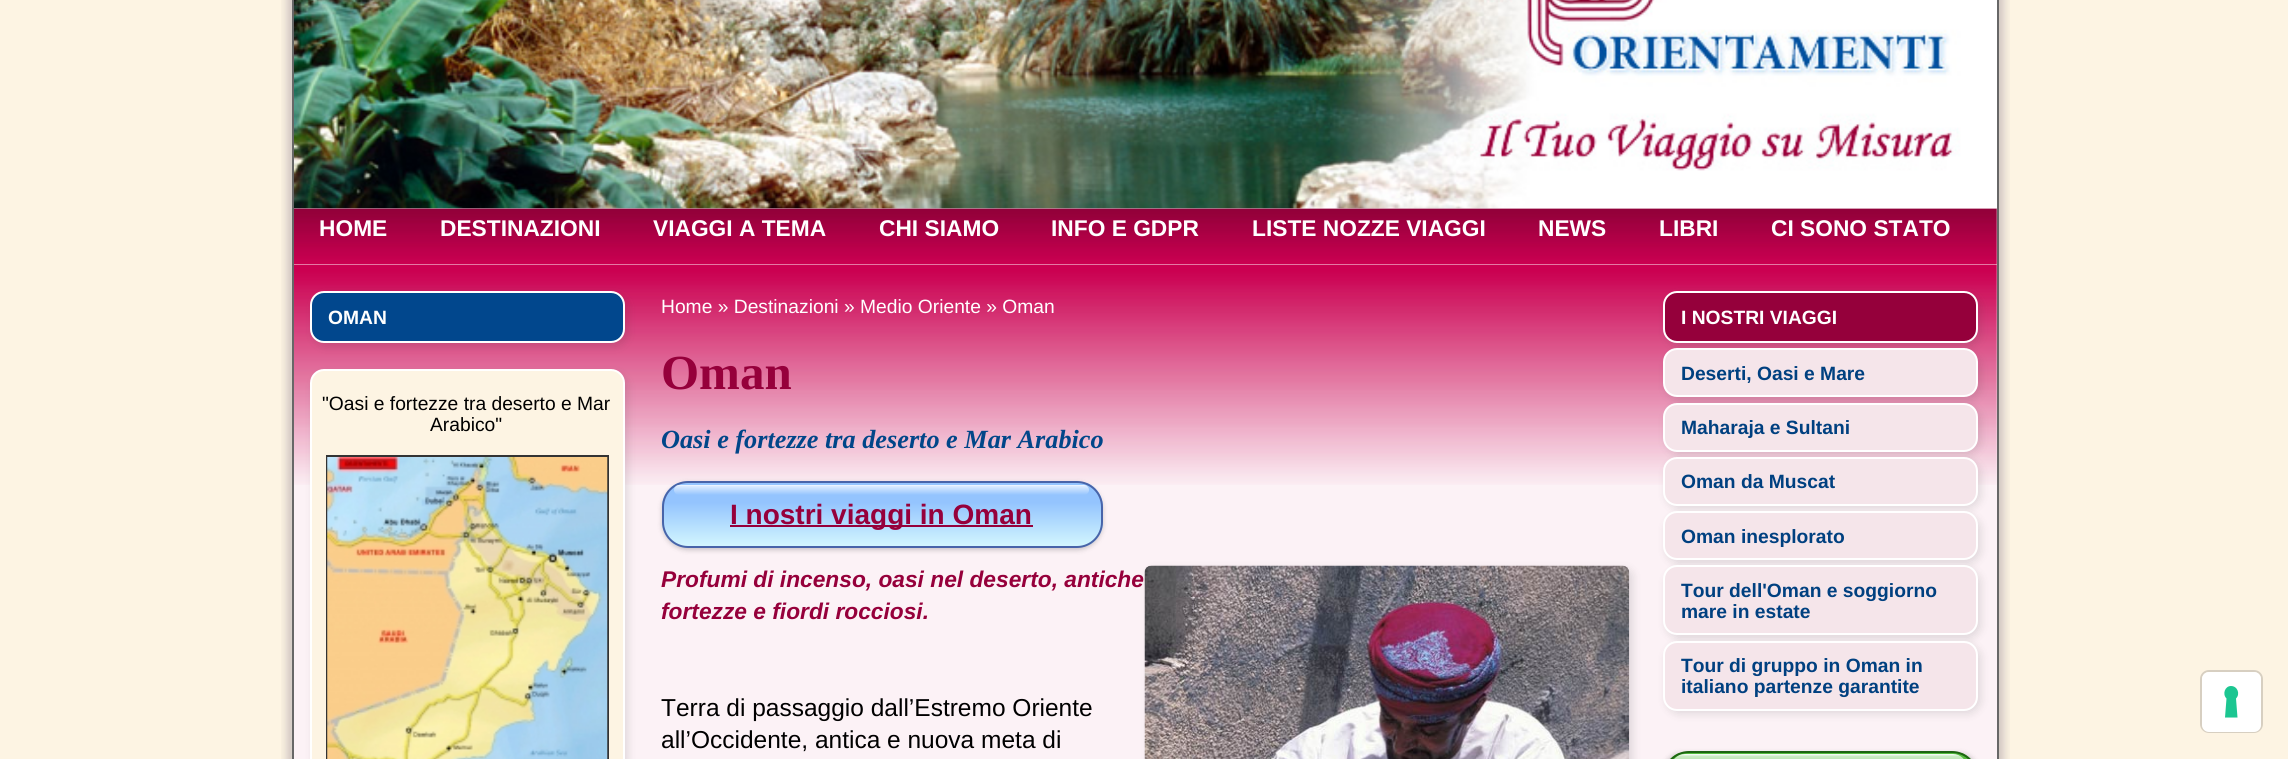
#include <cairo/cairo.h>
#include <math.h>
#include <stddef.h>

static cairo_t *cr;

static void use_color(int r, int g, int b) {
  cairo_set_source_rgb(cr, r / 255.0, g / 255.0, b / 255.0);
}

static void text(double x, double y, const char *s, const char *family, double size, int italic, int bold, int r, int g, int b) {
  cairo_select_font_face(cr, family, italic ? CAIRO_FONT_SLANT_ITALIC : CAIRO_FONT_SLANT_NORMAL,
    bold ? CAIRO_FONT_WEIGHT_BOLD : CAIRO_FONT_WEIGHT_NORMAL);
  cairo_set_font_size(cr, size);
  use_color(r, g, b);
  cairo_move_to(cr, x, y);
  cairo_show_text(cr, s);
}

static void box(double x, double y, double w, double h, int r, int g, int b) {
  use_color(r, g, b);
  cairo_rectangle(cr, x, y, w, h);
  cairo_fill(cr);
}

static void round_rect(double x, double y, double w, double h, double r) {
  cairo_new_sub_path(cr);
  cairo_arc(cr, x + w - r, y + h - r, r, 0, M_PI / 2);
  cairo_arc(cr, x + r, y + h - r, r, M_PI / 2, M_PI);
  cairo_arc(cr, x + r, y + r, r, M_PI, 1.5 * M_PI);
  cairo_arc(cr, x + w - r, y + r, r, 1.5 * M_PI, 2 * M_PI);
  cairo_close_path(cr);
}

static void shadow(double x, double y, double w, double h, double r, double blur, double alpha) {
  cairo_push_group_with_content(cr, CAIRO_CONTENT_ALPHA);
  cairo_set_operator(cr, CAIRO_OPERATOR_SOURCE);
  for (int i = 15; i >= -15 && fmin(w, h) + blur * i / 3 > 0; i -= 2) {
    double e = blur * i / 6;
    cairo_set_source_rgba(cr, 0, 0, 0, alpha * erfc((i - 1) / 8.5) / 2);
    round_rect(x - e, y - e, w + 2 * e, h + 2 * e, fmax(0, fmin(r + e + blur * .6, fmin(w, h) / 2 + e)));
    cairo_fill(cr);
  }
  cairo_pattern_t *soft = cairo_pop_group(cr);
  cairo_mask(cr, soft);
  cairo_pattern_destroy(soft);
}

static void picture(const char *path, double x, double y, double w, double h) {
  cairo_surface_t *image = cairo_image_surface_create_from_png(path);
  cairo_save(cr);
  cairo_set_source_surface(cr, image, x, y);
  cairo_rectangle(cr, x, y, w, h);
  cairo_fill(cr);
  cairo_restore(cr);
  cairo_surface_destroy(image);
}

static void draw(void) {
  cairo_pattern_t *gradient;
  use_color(253, 244, 227);
  cairo_paint(cr);
  picture("img_01.png", 281, 0, 1729, 759);
  box(1997, 0, 2, 759, 103, 103, 103);
  box(292, 0, 2, 759, 103, 103, 103);
  picture("img_03.png", 294, 208, 1703, 56);
  picture("img_02.png", 294, 0, 1703, 209);
  box(294, 264, 1703, 495, 252, 242, 246);
  picture("img_04.png", 294, 264, 1703, 221);
  use_color(50, 50, 50);
  shadow(313, 294, 315, 53, 14, 4.5, 0.14);
  use_color(1, 71, 141);
  round_rect(311, 292, 313, 50, 13);
  cairo_fill_preserve(cr);
  use_color(255, 255, 255);
  cairo_stroke(cr);
  use_color(50, 50, 50);
  shadow(313, 373, 315, 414, 14, 4.5, 0.14);
  use_color(253, 244, 227);
  round_rect(311, 370, 313, 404, 13);
  cairo_fill_preserve(cr);
  use_color(255, 255, 255);
  cairo_stroke(cr);
  cairo_rectangle(cr, 327, 456, 281, 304);
  use_color(51, 51, 51);
  cairo_stroke(cr);
  picture("img_05.png", 327, 457, 281, 302);
  use_color(0, 0, 0);
  shadow(662, 483, 441, 67, 26, 2.5, 0.2);
  cairo_save(cr);
  round_rect(662, 481, 441, 67, 26);
  cairo_clip(cr);
  gradient = cairo_pattern_create_linear(882, 483, 882, 546);
  cairo_pattern_add_color_stop_rgba(gradient, 0.31, 0.58, 0.769, 0.996, 1);
  cairo_pattern_add_color_stop_rgba(gradient, 1, 0.827, 0.965, 0.996, 1);
  cairo_set_source(cr, gradient);
  cairo_pattern_destroy(gradient);
  cairo_rectangle(cr, 662, 483, 441, 63);
  cairo_fill(cr);
  cairo_restore(cr);
  round_rect(663, 482, 439, 65, 25);
  use_color(72, 100, 169);
  cairo_stroke(cr);
  gradient = cairo_pattern_create_linear(881, 485, 881, 495);
  cairo_pattern_add_color_stop_rgba(gradient, 0, 1, 1, 1, 1);
  cairo_pattern_add_color_stop_rgba(gradient, 0.08, 1, 1, 1, 0.7);
  cairo_pattern_add_color_stop_rgba(gradient, 1, 1, 1, 1, 0);
  cairo_set_source(cr, gradient);
  cairo_pattern_destroy(gradient);
  round_rect(674, 485, 415, 10, 5);
  cairo_fill(cr);
  box(730, 525, 303, 2, 150, 0, 59);
  use_color(50, 50, 50);
  shadow(1148, 569, 485, 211, 7, 4.5, 0.14);
  picture("img_06.png", 1144, 565, 486, 194);
  shadow(1666, 294, 315, 53, 14, 4.5, 0.14);
  use_color(149, 0, 59);
  round_rect(1664, 292, 313, 50, 13);
  cairo_fill_preserve(cr);
  use_color(255, 255, 255);
  cairo_stroke(cr);
  use_color(50, 50, 50);
  shadow(1666, 352, 315, 49, 14, 4.5, 0.14);
  use_color(245, 229, 234);
  round_rect(1664, 349, 313, 47, 13);
  cairo_fill_preserve(cr);
  use_color(255, 255, 255);
  cairo_stroke(cr);
  use_color(50, 50, 50);
  shadow(1666, 406, 315, 49, 14, 4.5, 0.14);
  use_color(245, 229, 234);
  round_rect(1664, 404, 313, 47, 13);
  cairo_fill_preserve(cr);
  use_color(255, 255, 255);
  cairo_stroke(cr);
  use_color(50, 50, 50);
  shadow(1666, 460, 315, 49, 14, 4.5, 0.14);
  use_color(245, 229, 234);
  round_rect(1664, 458, 313, 47, 13);
  cairo_fill_preserve(cr);
  use_color(255, 255, 255);
  cairo_stroke(cr);
  use_color(50, 50, 50);
  shadow(1666, 515, 315, 49, 14, 4.5, 0.14);
  use_color(245, 229, 234);
  round_rect(1664, 512, 313, 47, 13);
  cairo_fill_preserve(cr);
  use_color(255, 255, 255);
  cairo_stroke(cr);
  use_color(50, 50, 50);
  shadow(1666, 569, 315, 70, 14, 4.5, 0.14);
  use_color(245, 229, 234);
  round_rect(1664, 566, 313, 68, 13);
  cairo_fill_preserve(cr);
  use_color(255, 255, 255);
  cairo_stroke(cr);
  use_color(50, 50, 50);
  shadow(1666, 644, 315, 70, 14, 4.5, 0.14);
  use_color(245, 229, 234);
  round_rect(1664, 642, 313, 68, 13);
  cairo_fill_preserve(cr);
  use_color(255, 255, 255);
  cairo_stroke(cr);
  use_color(0, 0, 0);
  shadow(1663, 753, 315, 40, 26, 2.5, 0.2);
  cairo_save(cr);
  round_rect(1663, 751, 315, 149, 26);
  cairo_clip(cr);
  gradient = cairo_pattern_create_linear(1820, 753, 1820, 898);
  cairo_pattern_add_color_stop_rgba(gradient, 0, 0.329, 0.737, 0.243, 1);
  cairo_pattern_add_color_stop_rgba(gradient, 1, 0.682, 0.91, 0.314, 1);
  cairo_set_source(cr, gradient);
  cairo_pattern_destroy(gradient);
  cairo_rectangle(cr, 1663, 753, 315, 6);
  cairo_fill(cr);
  cairo_restore(cr);
  round_rect(1664, 752, 313, 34, 25);
  use_color(29, 101, 17);
  cairo_stroke(cr);
  gradient = cairo_pattern_create_linear(1819, 754, 1819, 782);
  cairo_pattern_add_color_stop_rgba(gradient, 0, 1, 1, 1, 1);
  cairo_pattern_add_color_stop_rgba(gradient, 0.08, 1, 1, 1, 0.7);
  cairo_pattern_add_color_stop_rgba(gradient, 1, 1, 1, 1, 0);
  cairo_set_source(cr, gradient);
  cairo_pattern_destroy(gradient);
  round_rect(1671, 754, 296, 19, 14);
  cairo_fill(cr);
  round_rect(2201, 671, 61, 61, 8);
  use_color(215, 207, 193);
  cairo_stroke(cr);
  use_color(255, 255, 255);
  round_rect(2202, 672, 59, 60, 7);
  cairo_fill(cr);
  use_color(28, 198, 145);
  cairo_set_fill_rule(cr, CAIRO_FILL_RULE_EVEN_ODD);
  cairo_new_path(cr);
  cairo_move_to(cr, 2231, 686);
  cairo_curve_to(cr, 2237.5, 686, 2240.5, 694, 2236, 698.5);
  cairo_line_to(cr, 2237.5, 717.5);
  cairo_line_to(cr, 2225, 717.5);
  cairo_line_to(cr, 2226.5, 698.5);
  cairo_curve_to(cr, 2222, 694, 2225, 686, 2231, 686);
  cairo_close_path(cr);
  cairo_fill(cr);
  text(319, 236, "HOME", "Liberation Sans", 22.75, 0, 1, 255, 255, 255);
  text(440, 236, "DESTINAZIONI", "Liberation Sans", 22.75, 0, 1, 255, 255, 255);
  text(653, 236, "VIAGGI A TEMA", "Liberation Sans", 22.75, 0, 1, 255, 255, 255);
  text(879, 236, "CHI SIAMO", "Liberation Sans", 22.75, 0, 1, 255, 255, 255);
  text(1051, 236, "INFO E GDPR", "Liberation Sans", 22.75, 0, 1, 255, 255, 255);
  text(1252, 236, "LISTE NOZZE VIAGGI", "Liberation Sans", 22.75, 0, 1, 255, 255, 255);
  text(1538, 236, "NEWS", "Liberation Sans", 22.75, 0, 1, 255, 255, 255);
  text(1659, 236, "LIBRI", "Liberation Sans", 22.75, 0, 1, 255, 255, 255);
  text(1771, 236, "CI SONO STATO", "Liberation Sans", 22.75, 0, 1, 255, 255, 255);
  text(328, 324, "OMAN", "Liberation Sans", 19.25, 0, 1, 255, 255, 255);
  text(322, 410, "\"Oasi e fortezze tra deserto e Mar", "Liberation Sans", 19.25, 0, 0, 0, 0, 0);
  text(430, 431, "Arabico\"", "Liberation Sans", 19.25, 0, 0, 0, 0, 0);
  text(661, 313, "Home » Destinazioni » Medio Oriente » Oman", "Liberation Sans", 19.25, 0, 0, 255, 255, 255);
  text(661, 389, "Oman", "Liberation Serif", 49, 0, 1, 150, 0, 59);
  text(661, 448, "Oasi e fortezze tra deserto e Mar Arabico", "Liberation Serif", 26.25, 1, 1, 1, 70, 137);
  text(730, 524, "I nostri viaggi in Oman", "Liberation Sans", 28, 0, 1, 150, 0, 59);
  text(661, 587, "Profumi di incenso, oasi nel deserto, antiche", "Liberation Sans", 22.75, 1, 1, 150, 0, 59);
  text(661, 619, "fortezze e fiordi rocciosi.", "Liberation Sans", 22.75, 1, 1, 150, 0, 59);
  text(661, 716, "Terra di passaggio dall’Estremo Oriente", "Liberation Sans", 24.5, 0, 0, 0, 0, 0);
  text(661, 748, "all’Occidente, antica e nuova meta di", "Liberation Sans", 24.5, 0, 0, 0, 0, 0);
  text(1681, 324, "I NOSTRI VIAGGI", "Liberation Sans", 19.25, 0, 1, 255, 255, 255);
  text(1681, 380, "Deserti, Oasi e Mare", "Liberation Sans", 19.25, 0, 1, 0, 64, 128);
  text(1681, 434, "Maharaja e Sultani", "Liberation Sans", 19.25, 0, 1, 0, 64, 128);
  text(1681, 488, "Oman da Muscat", "Liberation Sans", 19.25, 0, 1, 0, 64, 128);
  text(1681, 543, "Oman inesplorato", "Liberation Sans", 19.25, 0, 1, 0, 64, 128);
  text(1681, 597, "Tour dell'Oman e soggiorno", "Liberation Sans", 19.25, 0, 1, 0, 64, 128);
  text(1681, 618, "mare in estate", "Liberation Sans", 19.25, 0, 1, 0, 64, 128);
  text(1681, 672, "Tour di gruppo in Oman in", "Liberation Sans", 19.25, 0, 1, 0, 64, 128);
  text(1681, 693, "italiano partenze garantite", "Liberation Sans", 19.25, 0, 1, 0, 64, 128);
}

int main(void) {
  cairo_surface_t *surface = cairo_image_surface_create(CAIRO_FORMAT_RGB24, 2288, 759);
  cr = cairo_create(surface);
  cairo_font_options_t *options = cairo_font_options_create();
  cairo_font_options_set_hint_metrics(options, CAIRO_HINT_METRICS_OFF);
  cairo_font_options_set_hint_style(options, CAIRO_HINT_STYLE_NONE);
  cairo_set_font_options(cr, options);
  cairo_set_miter_limit(cr, 4);
  draw();
  cairo_surface_write_to_png(surface, "out.png");
  cairo_font_options_destroy(options);
  cairo_destroy(cr);
  cairo_surface_destroy(surface);
  return 0;
}
